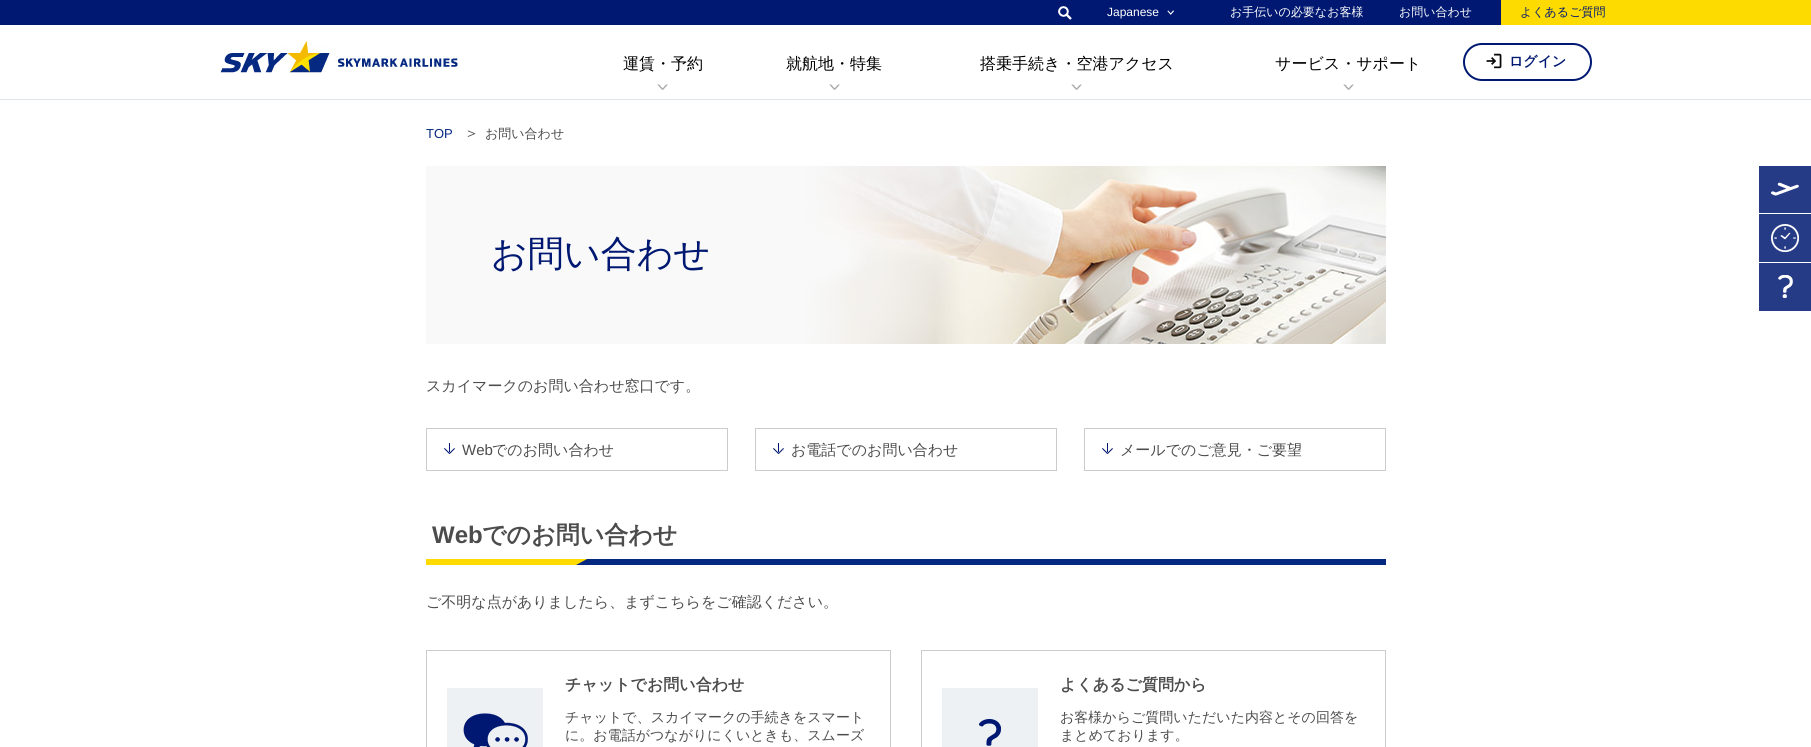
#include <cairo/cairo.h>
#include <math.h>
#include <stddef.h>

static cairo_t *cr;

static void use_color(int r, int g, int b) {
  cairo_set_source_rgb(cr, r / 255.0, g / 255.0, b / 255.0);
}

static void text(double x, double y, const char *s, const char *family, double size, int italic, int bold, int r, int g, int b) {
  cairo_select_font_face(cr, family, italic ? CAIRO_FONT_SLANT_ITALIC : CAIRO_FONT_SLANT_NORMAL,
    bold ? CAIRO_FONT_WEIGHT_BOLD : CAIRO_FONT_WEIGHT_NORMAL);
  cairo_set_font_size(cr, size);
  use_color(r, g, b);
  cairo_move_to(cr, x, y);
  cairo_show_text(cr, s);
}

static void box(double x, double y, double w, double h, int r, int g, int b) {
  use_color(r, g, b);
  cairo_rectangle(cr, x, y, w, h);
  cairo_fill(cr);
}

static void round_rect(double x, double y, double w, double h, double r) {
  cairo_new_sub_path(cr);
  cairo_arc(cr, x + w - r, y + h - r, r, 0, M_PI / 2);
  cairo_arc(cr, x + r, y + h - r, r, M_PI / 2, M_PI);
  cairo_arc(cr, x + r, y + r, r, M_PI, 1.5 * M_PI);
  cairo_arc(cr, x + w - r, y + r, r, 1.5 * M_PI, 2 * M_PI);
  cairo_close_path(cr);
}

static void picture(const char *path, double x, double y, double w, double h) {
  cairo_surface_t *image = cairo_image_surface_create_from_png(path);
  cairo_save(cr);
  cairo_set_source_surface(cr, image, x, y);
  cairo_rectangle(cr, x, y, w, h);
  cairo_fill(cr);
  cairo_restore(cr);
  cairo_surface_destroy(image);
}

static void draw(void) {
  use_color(255, 255, 255);
  cairo_paint(cr);
  box(0, 0, 1501, 25, 0, 24, 113);
  picture("img_01.png", 1058, 6, 14, 14);
  picture("img_02.png", 1167, 10, 7, 5);
  box(1501, 0, 310, 25, 254, 219, 0);
  box(0, 99, 1811, 1, 224, 229, 233);
  picture("img_03.png", 220, 41, 238, 32);
  picture("img_04.png", 657, 84, 11, 6);
  picture("img_04.png", 829, 84, 11, 6);
  picture("img_04.png", 1071, 84, 11, 6);
  picture("img_04.png", 1343, 84, 11, 6);
  round_rect(1464, 44, 127, 36, 18);
  use_color(0, 24, 113);
  cairo_stroke(cr);
  picture("img_05.png", 1486, 53, 16, 16);
  picture("img_06.png", 426, 166, 960, 178);
  cairo_rectangle(cr, 426.5, 428.5, 301, 42);
  use_color(204, 204, 204);
  cairo_set_line_width(cr, 1);
  cairo_stroke(cr);
  picture("img_07.png", 444, 443, 11, 11);
  cairo_rectangle(cr, 755.5, 428.5, 301, 42);
  cairo_stroke(cr);
  picture("img_07.png", 773, 443, 11, 11);
  cairo_rectangle(cr, 1084.5, 428.5, 301, 42);
  cairo_stroke(cr);
  picture("img_07.png", 1102, 443, 11, 11);
  box(576, 559, 810, 6, 5, 41, 129);
  use_color(254, 219, 0);
  cairo_new_path(cr);
  cairo_move_to(cr, 576, 559);
  cairo_line_to(cr, 587, 559);
  cairo_line_to(cr, 576, 565);
  cairo_close_path(cr);
  cairo_fill(cr);
  box(426, 559, 150, 6, 254, 219, 0);
  cairo_rectangle(cr, 426.5, 650.5, 464, 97);
  use_color(204, 204, 204);
  cairo_stroke(cr);
  picture("img_08.png", 447, 688, 96, 59);
  cairo_rectangle(cr, 921.5, 650.5, 464, 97);
  cairo_stroke(cr);
  picture("img_09.png", 942, 688, 96, 59);
  box(1759, 166, 52, 47, 38, 59, 134);
  picture("img_10.png", 1771, 182, 28, 14);
  box(1759, 214, 52, 48, 38, 59, 134);
  picture("img_11.png", 1771, 224, 28, 28);
  box(1759, 263, 52, 48, 38, 59, 134);
  picture("img_12.png", 1778, 275, 15, 23);
  text(1107, 16, "Japanese", "Liberation Sans", 12, 0, 0, 255, 255, 255);
  text(1230, 16, "お手伝いの必要なお客様", "WenQuanYi Zen Hei Medium", 12, 0, 0, 255, 255, 255);
  text(1399, 16, "お問い合わせ", "WenQuanYi Zen Hei Medium", 12, 0, 0, 255, 255, 255);
  text(1520, 16, "よくあるご質問", "WenQuanYi Zen Hei Medium", 12, 0, 0, 0, 24, 113);
  text(623, 69, "運賃・予約", "WenQuanYi Zen Hei Medium", 16, 0, 0, 0, 0, 0);
  text(786, 69, "就航地・特集", "WenQuanYi Zen Hei Medium", 16, 0, 0, 0, 0, 0);
  text(980, 69, "搭乗手続き・空港アクセス", "WenQuanYi Zen Hei Medium", 16, 0, 0, 0, 0, 0);
  text(1275, 69, "サービス・サポート", "WenQuanYi Zen Hei Medium", 16, 0, 0, 0, 0, 0);
  text(1509, 66, "ログイン", "WenQuanYi Zen Hei", 14, 0, 1, 0, 24, 113);
  text(426, 138, "TOP", "Liberation Sans", 13, 0, 0, 5, 41, 129);
  text(464, 138, "＞", "WenQuanYi Zen Hei Medium", 15, 0, 0, 76, 76, 76);
  text(485, 138, "お問い合わせ", "WenQuanYi Zen Hei Medium", 13, 0, 0, 76, 76, 76);
  text(491, 266, "お問い合わせ", "WenQuanYi Zen Hei Medium", 36, 0, 0, 0, 24, 113);
  text(426, 391, "スカイマークのお問い合わせ窓口です。", "WenQuanYi Zen Hei Medium", 15, 0, 0, 76, 76, 76);
  text(462, 455, "Web", "Liberation Sans", 15, 0, 0, 76, 76, 76);
  text(492, 455, "でのお問い合わせ", "WenQuanYi Zen Hei Medium", 15, 0, 0, 76, 76, 76);
  text(791, 455, "お電話でのお問い合わせ", "WenQuanYi Zen Hei Medium", 15, 0, 0, 76, 76, 76);
  text(1120, 455, "メールでのご意見・ご要望", "WenQuanYi Zen Hei Medium", 15, 0, 0, 76, 76, 76);
  text(432, 543, "Web", "Liberation Sans", 24, 0, 1, 76, 76, 76);
  text(482, 543, "でのお問い合わせ", "WenQuanYi Zen Hei", 24, 0, 1, 76, 76, 76);
  text(426, 607, "ご不明な点がありましたら、まずこちらをご確認ください。", "WenQuanYi Zen Hei Medium", 15, 0, 0, 76, 76, 76);
  text(565, 690, "チャットでお問い合わせ", "WenQuanYi Zen Hei", 16, 0, 1, 76, 76, 76);
  text(565, 722, "チャットで、スカイマークの手続きをスマート", "WenQuanYi Zen Hei Medium", 14, 0, 0, 76, 76, 76);
  text(565, 740, "に。お電話がつながりにくいときも、スムーズ", "WenQuanYi Zen Hei Medium", 14, 0, 0, 76, 76, 76);
  text(1060, 690, "よくあるご質問から", "WenQuanYi Zen Hei", 16, 0, 1, 76, 76, 76);
  text(1060, 722, "お客様からご質問いただいた内容とその回答を", "WenQuanYi Zen Hei Medium", 14, 0, 0, 76, 76, 76);
  text(1060, 740, "まとめております。", "WenQuanYi Zen Hei Medium", 14, 0, 0, 76, 76, 76);
}

int main(void) {
  cairo_surface_t *surface = cairo_image_surface_create(CAIRO_FORMAT_RGB24, 1811, 747);
  cr = cairo_create(surface);
  cairo_font_options_t *options = cairo_font_options_create();
  cairo_font_options_set_hint_metrics(options, CAIRO_HINT_METRICS_OFF);
  cairo_font_options_set_hint_style(options, CAIRO_HINT_STYLE_NONE);
  cairo_set_font_options(cr, options);
  cairo_set_miter_limit(cr, 4);
  draw();
  cairo_surface_write_to_png(surface, "out.png");
  cairo_font_options_destroy(options);
  cairo_destroy(cr);
  cairo_surface_destroy(surface);
  return 0;
}
